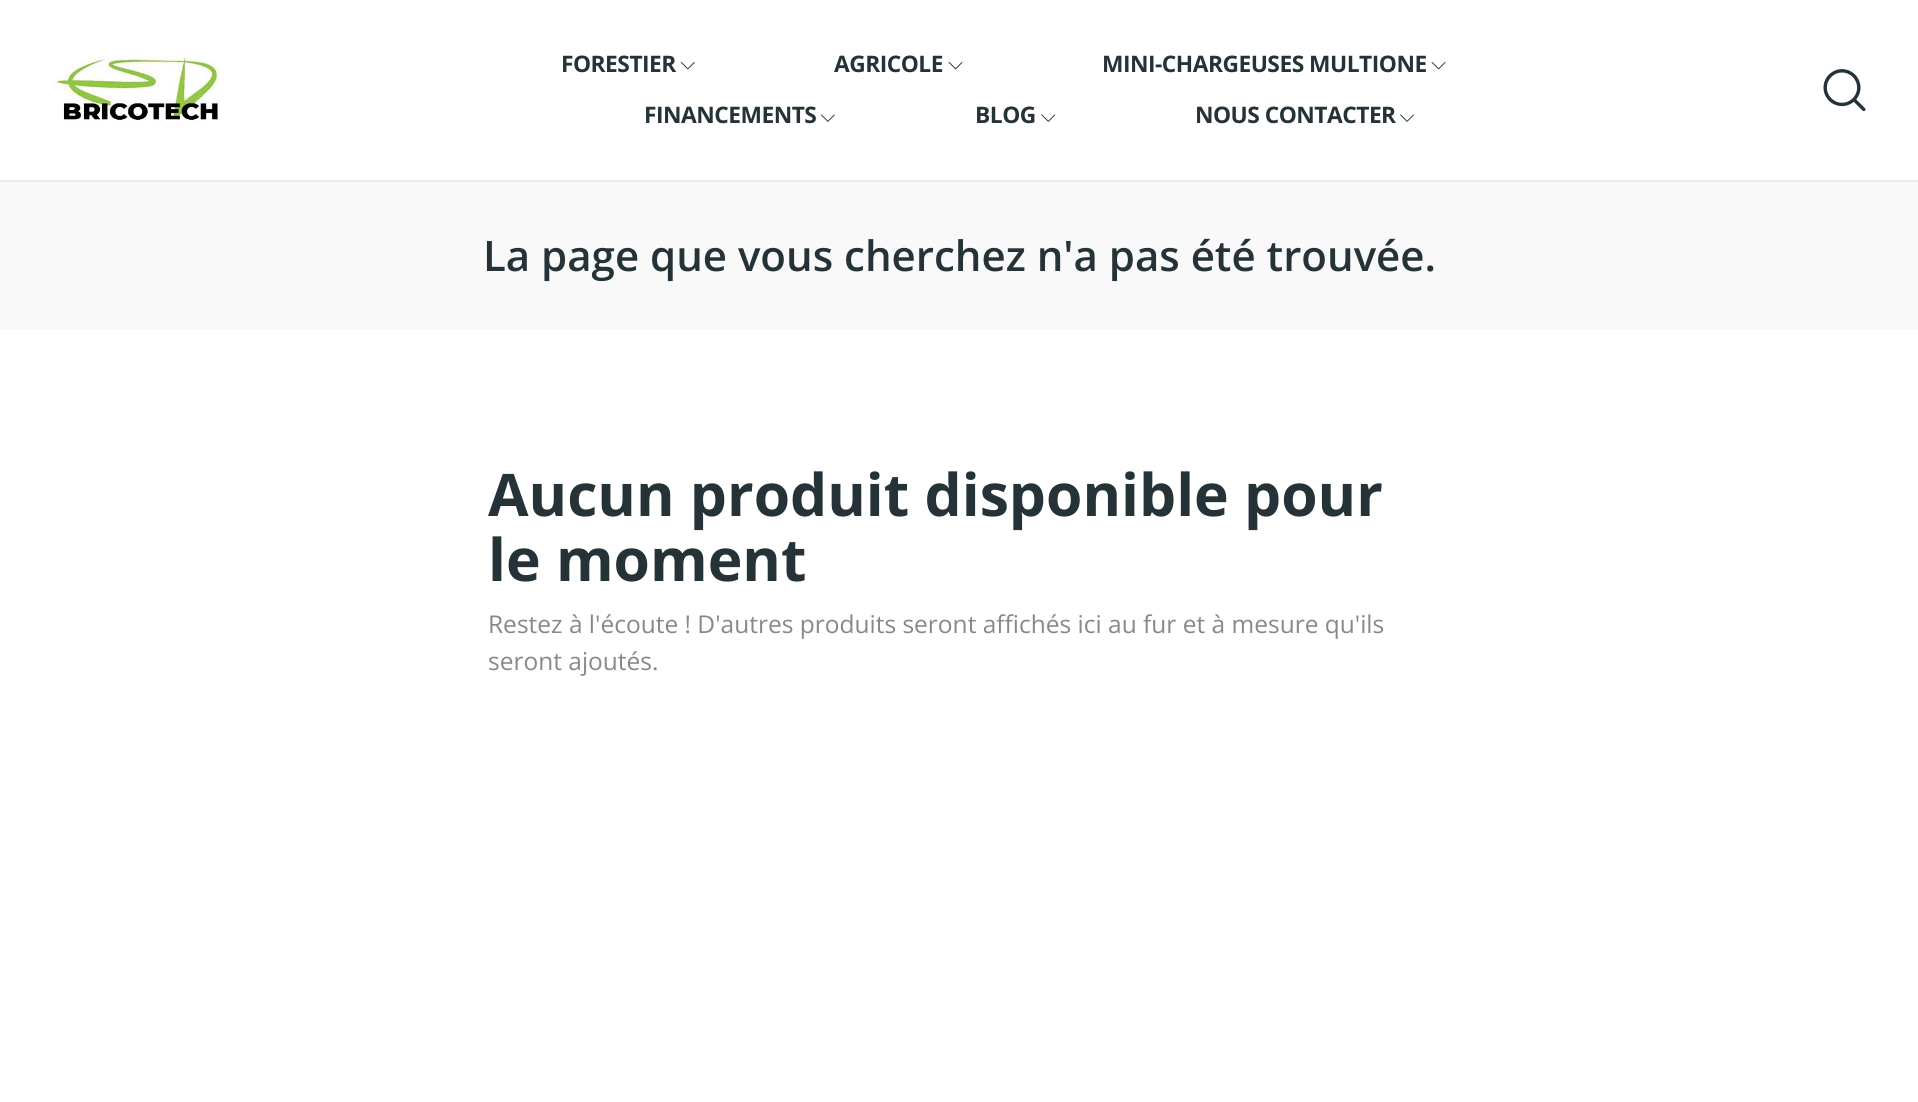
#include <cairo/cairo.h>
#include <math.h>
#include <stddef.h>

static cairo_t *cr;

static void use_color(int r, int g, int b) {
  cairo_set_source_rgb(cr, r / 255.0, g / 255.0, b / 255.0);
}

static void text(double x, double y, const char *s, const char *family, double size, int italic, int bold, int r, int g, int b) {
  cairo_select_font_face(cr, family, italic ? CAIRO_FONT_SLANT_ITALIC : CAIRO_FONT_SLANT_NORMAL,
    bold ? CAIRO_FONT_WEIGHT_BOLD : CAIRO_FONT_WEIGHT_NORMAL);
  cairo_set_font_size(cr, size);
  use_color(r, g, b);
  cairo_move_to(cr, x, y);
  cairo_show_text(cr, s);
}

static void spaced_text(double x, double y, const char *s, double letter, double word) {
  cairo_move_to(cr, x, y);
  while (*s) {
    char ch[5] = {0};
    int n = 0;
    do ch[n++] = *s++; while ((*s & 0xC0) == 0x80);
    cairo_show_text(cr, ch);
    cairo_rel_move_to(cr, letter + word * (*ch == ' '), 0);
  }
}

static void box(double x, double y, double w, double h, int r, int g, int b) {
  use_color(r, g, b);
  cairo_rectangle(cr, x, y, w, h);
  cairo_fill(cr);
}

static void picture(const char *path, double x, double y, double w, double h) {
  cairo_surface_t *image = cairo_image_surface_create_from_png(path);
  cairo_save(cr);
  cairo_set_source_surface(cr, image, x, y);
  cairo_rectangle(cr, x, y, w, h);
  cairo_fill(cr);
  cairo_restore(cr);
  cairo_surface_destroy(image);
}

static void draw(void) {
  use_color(255, 255, 255);
  cairo_paint(cr);
  box(0, 180, 1918, 2, 235, 235, 235);
  picture("img_01.png", 53, 53, 167, 69);
  picture("img_02.png", 680, 62, 15, 8);
  picture("img_03.png", 948, 62, 15, 8);
  picture("img_03.png", 1431, 62, 15, 8);
  picture("img_04.png", 820, 114, 15, 8);
  picture("img_05.png", 1041, 114, 15, 8);
  picture("img_06.png", 1400, 114, 14, 8);
  picture("img_07.png", 1823, 69, 43, 43);
  box(0, 182, 1918, 147, 249, 249, 249);
  cairo_select_font_face(cr, "Open Sans", CAIRO_FONT_SLANT_NORMAL, CAIRO_FONT_WEIGHT_BOLD);
  cairo_set_font_size(cr, 22.75);
  use_color(37, 50, 55);
  spaced_text(561, 72, "FORESTIER", -0.5, 0);
  spaced_text(834, 72, "AGRICOLE", -0.5, 0);
  spaced_text(1102, 72, "MINI-CHARGEUSES MULTIONE", -0.5, 0);
  spaced_text(644, 123, "FINANCEMENTS", -0.5, 0);
  spaced_text(975, 123, "BLOG", -0.5, 0);
  spaced_text(1195, 123, "NOUS CONTACTER", -0.5, 0);
  text(483, 271, "La page que vous cherchez n'a pas été trouvée.", "Open Sans SemiBold", 42, 0, 0, 37, 50, 55);
  text(488, 516, "Aucun produit disponible pour", "Open Sans", 58.75, 0, 1, 37, 50, 55);
  text(488, 581, "le moment", "Open Sans", 58.75, 0, 1, 37, 50, 55);
  text(488, 633, "Restez à l'écoute ! D'autres produits seront affichés ici au fur et à mesure qu'ils", "Open Sans", 24.5, 0, 0, 136, 136, 136);
  text(488, 670, "seront ajoutés.", "Open Sans", 24.5, 0, 0, 136, 136, 136);
}

int main(void) {
  cairo_surface_t *surface = cairo_image_surface_create(CAIRO_FORMAT_RGB24, 1918, 1102);
  cr = cairo_create(surface);
  cairo_font_options_t *options = cairo_font_options_create();
  cairo_font_options_set_hint_metrics(options, CAIRO_HINT_METRICS_OFF);
  cairo_font_options_set_hint_style(options, CAIRO_HINT_STYLE_NONE);
  cairo_set_font_options(cr, options);
  cairo_set_miter_limit(cr, 4);
  draw();
  cairo_surface_write_to_png(surface, "out.png");
  cairo_font_options_destroy(options);
  cairo_destroy(cr);
  cairo_surface_destroy(surface);
  return 0;
}
